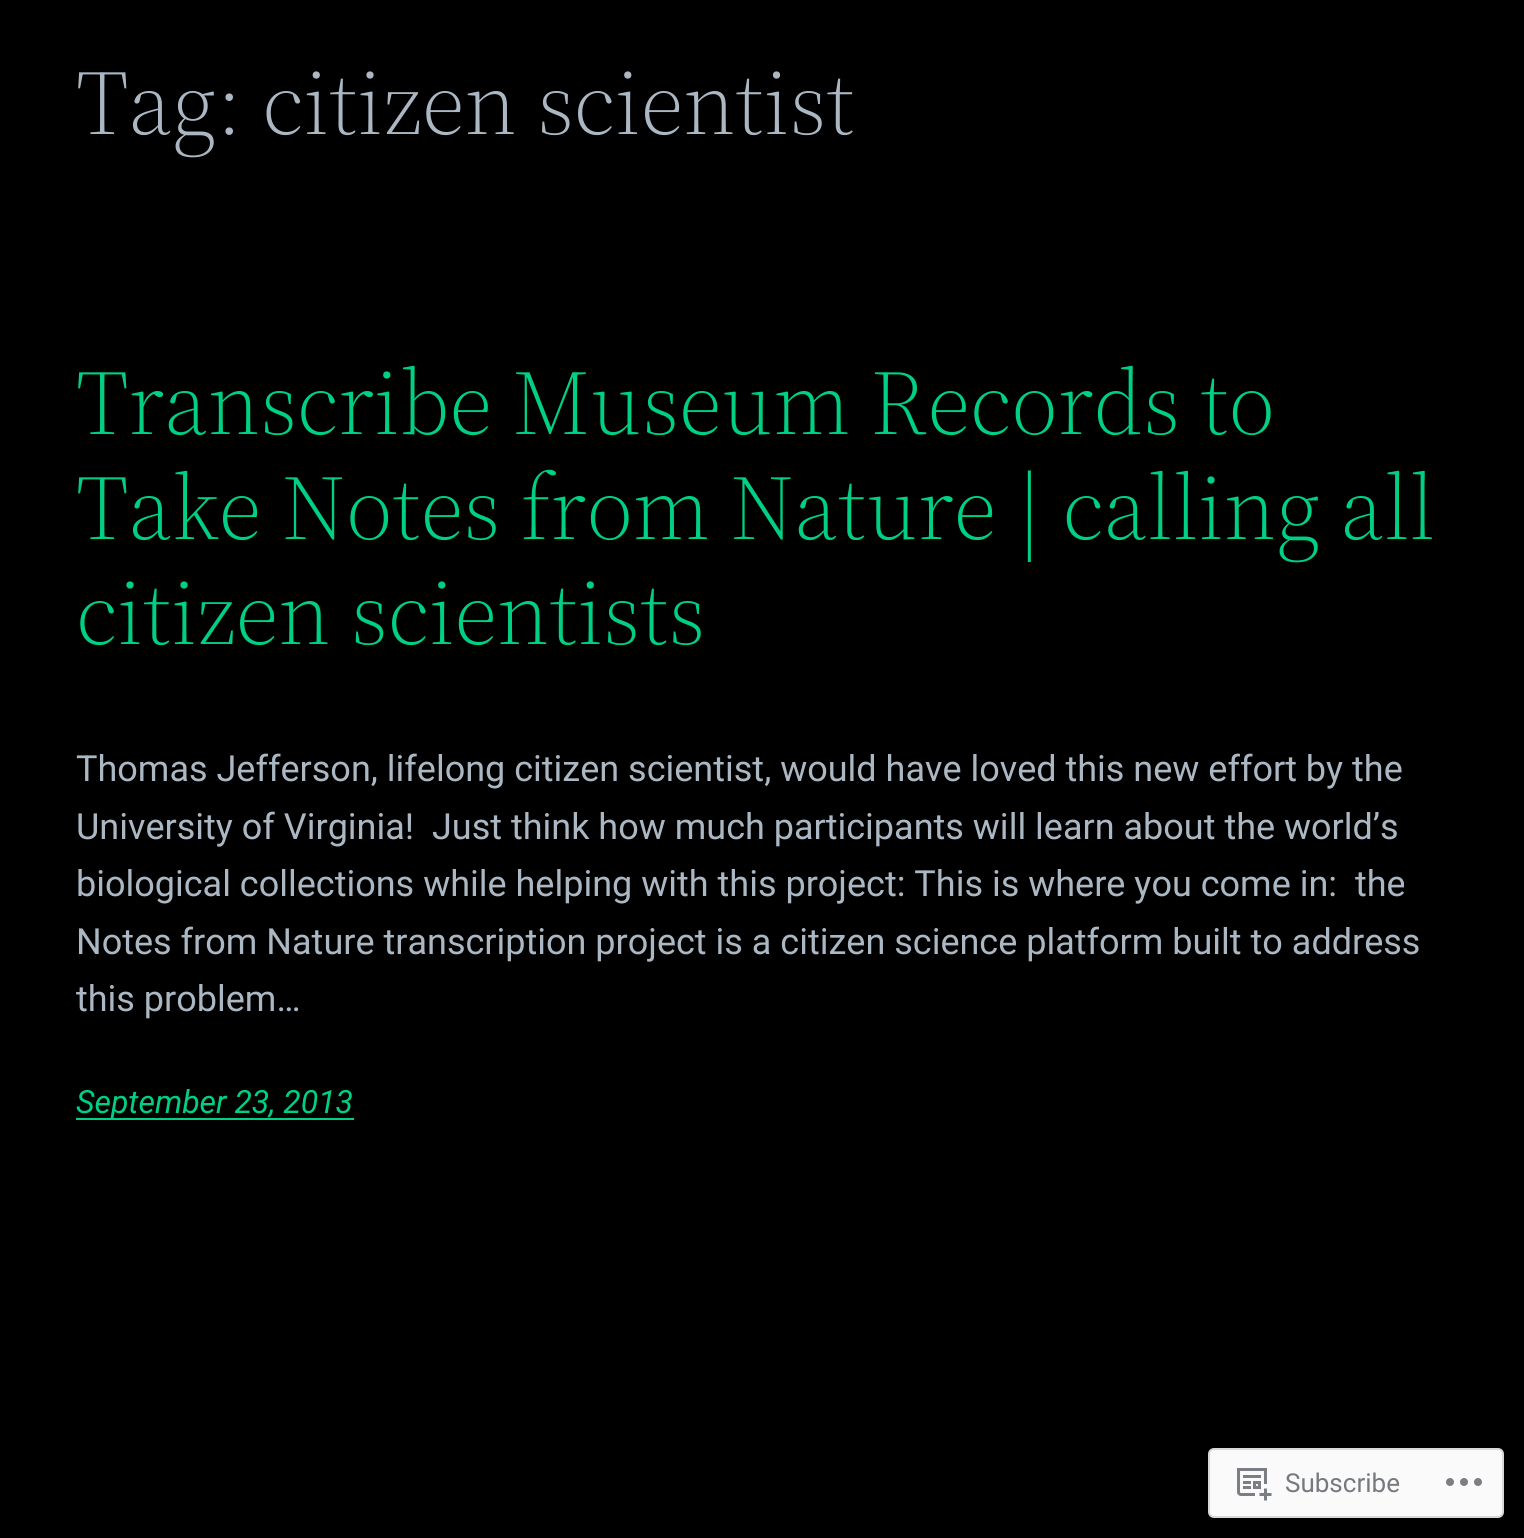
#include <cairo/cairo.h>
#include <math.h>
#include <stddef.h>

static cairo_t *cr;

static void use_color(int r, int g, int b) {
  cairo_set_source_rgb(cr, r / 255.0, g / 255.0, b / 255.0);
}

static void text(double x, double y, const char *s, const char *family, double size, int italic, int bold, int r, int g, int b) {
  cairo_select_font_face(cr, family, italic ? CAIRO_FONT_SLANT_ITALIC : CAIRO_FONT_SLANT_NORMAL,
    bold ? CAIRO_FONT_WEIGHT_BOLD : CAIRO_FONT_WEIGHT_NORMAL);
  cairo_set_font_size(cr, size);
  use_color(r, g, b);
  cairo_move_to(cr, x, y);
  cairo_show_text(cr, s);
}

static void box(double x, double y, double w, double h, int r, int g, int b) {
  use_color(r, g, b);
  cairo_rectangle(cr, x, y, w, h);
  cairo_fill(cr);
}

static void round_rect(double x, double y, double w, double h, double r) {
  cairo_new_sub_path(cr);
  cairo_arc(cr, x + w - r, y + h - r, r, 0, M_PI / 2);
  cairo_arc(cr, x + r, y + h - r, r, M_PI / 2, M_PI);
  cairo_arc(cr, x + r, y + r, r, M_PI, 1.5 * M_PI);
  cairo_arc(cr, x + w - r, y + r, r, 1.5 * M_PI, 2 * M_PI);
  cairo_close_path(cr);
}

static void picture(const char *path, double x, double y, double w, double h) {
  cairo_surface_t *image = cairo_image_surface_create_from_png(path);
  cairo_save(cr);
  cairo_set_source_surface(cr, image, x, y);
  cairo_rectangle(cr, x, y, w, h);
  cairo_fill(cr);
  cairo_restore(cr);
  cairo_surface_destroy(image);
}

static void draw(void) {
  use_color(0, 0, 0);
  cairo_paint(cr);
  box(76, 1118, 278, 2, 0, 208, 132);
  use_color(250, 250, 250);
  round_rect(1209, 1449, 294, 68, 5);
  cairo_fill_preserve(cr);
  use_color(216, 216, 218);
  cairo_stroke(cr);
  picture("img_01.png", 1237, 1468, 35, 33);
  picture("img_02.png", 1446, 1478, 36, 8);
  text(76, 134, "Tag: citizen scientist", "Source Serif 4 Light", 91.5, 0, 0, 171, 184, 195);
  text(76, 434, "Transcribe Museum Records to", "Source Serif 4 Light", 91.5, 0, 0, 0, 208, 132);
  text(76, 539, "Take Notes from Nature | calling all", "Source Serif 4 Light", 91.5, 0, 0, 0, 208, 132);
  text(76, 644, "citizen scientists", "Source Serif 4 Light", 91.5, 0, 0, 0, 208, 132);
  text(76, 781, "Thomas Jefferson, lifelong citizen scientist, would have loved this new effort by the", "Roboto", 36, 0, 0, 171, 184, 195);
  text(76, 839, "University of Virginia!  Just think how much participants will learn about the world’s", "Roboto", 36, 0, 0, 171, 184, 195);
  text(76, 896, "biological collections while helping with this project: This is where you come in:  the", "Roboto", 36, 0, 0, 171, 184, 195);
  text(76, 954, "Notes from Nature transcription project is a citizen science platform built to address", "Roboto", 36, 0, 0, 171, 184, 195);
  text(76, 1011, "this problem…", "Roboto", 36, 0, 0, 171, 184, 195);
  text(76, 1113, "September 23, 2013", "Roboto", 32, 1, 0, 0, 208, 132);
  text(1285, 1492, "Subscribe", "Roboto", 26, 0, 0, 118, 122, 127);
}

int main(void) {
  cairo_surface_t *surface = cairo_image_surface_create(CAIRO_FORMAT_RGB24, 1524, 1538);
  cr = cairo_create(surface);
  cairo_font_options_t *options = cairo_font_options_create();
  cairo_font_options_set_hint_metrics(options, CAIRO_HINT_METRICS_OFF);
  cairo_font_options_set_hint_style(options, CAIRO_HINT_STYLE_NONE);
  cairo_set_font_options(cr, options);
  cairo_set_miter_limit(cr, 4);
  draw();
  cairo_surface_write_to_png(surface, "out.png");
  cairo_font_options_destroy(options);
  cairo_destroy(cr);
  cairo_surface_destroy(surface);
  return 0;
}
